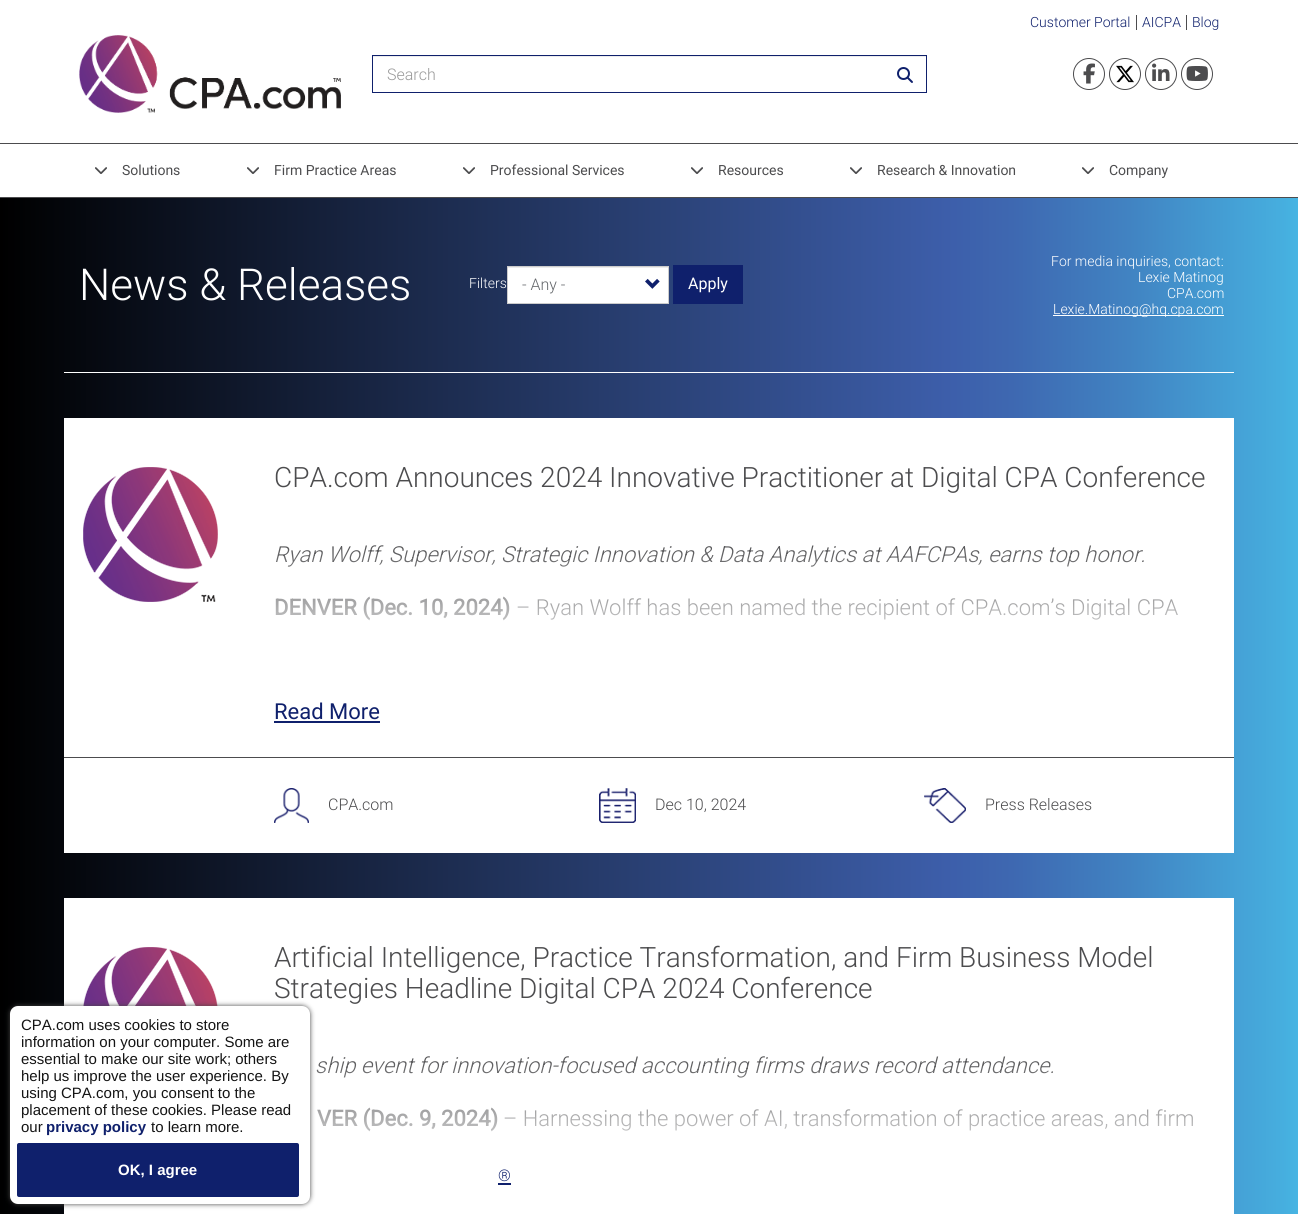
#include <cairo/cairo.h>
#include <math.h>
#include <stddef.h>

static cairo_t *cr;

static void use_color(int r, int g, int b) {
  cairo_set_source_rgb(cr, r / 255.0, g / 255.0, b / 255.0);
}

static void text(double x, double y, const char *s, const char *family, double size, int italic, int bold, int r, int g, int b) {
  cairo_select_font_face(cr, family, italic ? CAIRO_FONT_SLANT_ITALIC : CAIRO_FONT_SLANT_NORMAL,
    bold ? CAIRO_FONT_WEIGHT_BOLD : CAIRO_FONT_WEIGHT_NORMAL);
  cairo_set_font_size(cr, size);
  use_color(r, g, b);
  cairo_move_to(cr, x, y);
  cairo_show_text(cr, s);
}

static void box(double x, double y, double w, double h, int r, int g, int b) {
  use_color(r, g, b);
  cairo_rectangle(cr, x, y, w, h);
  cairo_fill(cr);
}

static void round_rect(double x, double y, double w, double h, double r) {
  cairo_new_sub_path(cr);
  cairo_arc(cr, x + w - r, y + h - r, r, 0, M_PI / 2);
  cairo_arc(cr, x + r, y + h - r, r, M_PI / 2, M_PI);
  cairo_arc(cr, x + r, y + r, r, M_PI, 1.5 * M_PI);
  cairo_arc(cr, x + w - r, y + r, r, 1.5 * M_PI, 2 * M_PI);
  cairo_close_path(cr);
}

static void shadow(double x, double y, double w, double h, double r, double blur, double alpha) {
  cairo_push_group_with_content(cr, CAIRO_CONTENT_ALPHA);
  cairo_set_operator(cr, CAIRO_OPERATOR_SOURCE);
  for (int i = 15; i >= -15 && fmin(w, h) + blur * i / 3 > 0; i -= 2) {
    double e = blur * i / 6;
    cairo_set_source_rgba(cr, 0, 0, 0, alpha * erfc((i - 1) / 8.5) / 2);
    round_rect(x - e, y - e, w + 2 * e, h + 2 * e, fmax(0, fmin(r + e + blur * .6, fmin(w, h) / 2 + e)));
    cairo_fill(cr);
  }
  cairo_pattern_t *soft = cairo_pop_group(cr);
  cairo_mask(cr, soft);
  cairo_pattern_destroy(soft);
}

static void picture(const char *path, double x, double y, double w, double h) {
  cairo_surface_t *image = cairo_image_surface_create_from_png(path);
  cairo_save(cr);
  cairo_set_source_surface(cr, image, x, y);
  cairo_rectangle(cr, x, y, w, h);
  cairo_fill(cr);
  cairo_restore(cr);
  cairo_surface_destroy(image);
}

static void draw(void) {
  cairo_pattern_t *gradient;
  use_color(255, 255, 255);
  cairo_paint(cr);
  box(0, 143, 1298, 1, 76, 76, 78);
  box(1136, 15, 1, 15, 76, 76, 78);
  box(1186, 15, 1, 15, 76, 76, 78);
  picture("img_01.png", 79, 35, 262, 78);
  box(373, 56, 553, 1, 236, 236, 236);
  cairo_rectangle(cr, 372.5, 55.5, 554, 37);
  use_color(15, 32, 108);
  cairo_set_line_width(cr, 1);
  cairo_stroke(cr);
  picture("img_02.png", 897, 67, 16, 16);
  cairo_arc(cr, 1089, 74, 15.5, 0, 2 * M_PI);
  use_color(76, 76, 78);
  cairo_stroke(cr);
  picture("img_03.png", 1083, 63, 12, 21);
  cairo_arc(cr, 1125, 74, 15.5, 0, 2 * M_PI);
  cairo_stroke(cr);
  picture("img_04.png", 1116, 65, 18, 18);
  cairo_arc(cr, 1161, 74, 15.5, 0, 2 * M_PI);
  cairo_stroke(cr);
  picture("img_05.png", 1152, 63, 18, 18);
  cairo_arc(cr, 1197, 74, 15.5, 0, 2 * M_PI);
  cairo_stroke(cr);
  picture("img_06.png", 1186, 66, 22, 15);
  box(0, 197, 1298, 1, 76, 76, 78);
  picture("img_07.png", 95, 167, 12, 7);
  picture("img_07.png", 247, 167, 12, 7);
  picture("img_07.png", 463, 167, 12, 7);
  picture("img_07.png", 691, 167, 12, 7);
  picture("img_07.png", 850, 167, 12, 7);
  picture("img_07.png", 1082, 167, 12, 7);
  gradient = cairo_pattern_create_linear(0, 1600, 1298, 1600);
  cairo_pattern_add_color_stop_rgba(gradient, 0, 0, 0, 0, 1);
  cairo_pattern_add_color_stop_rgba(gradient, 0.73, 0.239, 0.369, 0.667, 1);
  cairo_pattern_add_color_stop_rgba(gradient, 0.78, 0.243, 0.408, 0.694, 1);
  cairo_pattern_add_color_stop_rgba(gradient, 0.87, 0.255, 0.514, 0.761, 1);
  cairo_pattern_add_color_stop_rgba(gradient, 0.99, 0.275, 0.686, 0.875, 1);
  cairo_pattern_add_color_stop_rgba(gradient, 1, 0.278, 0.71, 0.89, 1);
  cairo_set_source(cr, gradient);
  cairo_pattern_destroy(gradient);
  cairo_rectangle(cr, 0, 198, 1298, 1016);
  cairo_fill(cr);
  box(64, 372, 1170, 1, 255, 255, 255);
  box(508, 268, 160, 35, 255, 255, 255);
  box(508, 267, 160, 1, 236, 236, 236);
  cairo_rectangle(cr, 507.5, 266.5, 161, 37);
  use_color(204, 204, 204);
  cairo_stroke(cr);
  picture("img_08.png", 645, 278, 15, 11);
  box(673, 265, 70, 39, 15, 32, 108);
  box(1053, 315, 171, 1, 255, 255, 255);
  box(64, 418, 1170, 435, 255, 255, 255);
  picture("img_09.png", 83, 467, 135, 135);
  box(274, 721, 106, 2, 15, 32, 108);
  box(64, 757, 1170, 1, 76, 76, 78);
  picture("img_10.png", 274, 788, 35, 35);
  picture("img_11.png", 599, 788, 37, 35);
  picture("img_12.png", 924, 788, 42, 35);
  box(64, 898, 1170, 316, 255, 255, 255);
  picture("img_13.png", 83, 947, 135, 59);
  box(498, 1183, 13, 2, 15, 32, 108);
  text(1030, 27, "Customer Portal", "Roboto Light", 14, 0, 0, 15, 32, 108);
  text(1142, 27, "AICPA", "Roboto Light", 14, 0, 0, 15, 32, 108);
  text(1192, 27, "Blog", "Roboto Light", 14, 0, 0, 15, 32, 108);
  text(387, 80, "Search", "Roboto Light", 16, 0, 0, 153, 153, 153);
  text(122, 175, "Solutions", "Roboto", 14, 0, 0, 76, 76, 78);
  text(274, 175, "Firm Practice Areas", "Roboto", 14, 0, 0, 76, 76, 78);
  text(490, 175, "Professional Services", "Roboto", 14, 0, 0, 76, 76, 78);
  text(718, 175, "Resources", "Roboto", 14, 0, 0, 76, 76, 78);
  text(877, 175, "Research & Innovation", "Roboto", 14, 0, 0, 76, 76, 78);
  text(1109, 175, "Company", "Roboto", 14, 0, 0, 76, 76, 78);
  text(79, 300, "News & Releases", "Roboto Light", 44, 0, 0, 255, 255, 255);
  text(469, 288, "Filters", "Roboto Light", 14, 0, 0, 255, 255, 255);
  text(522, 290, "- Any -", "Roboto Light", 16, 0, 0, 99, 102, 106);
  text(688, 289, "Apply", "Roboto", 16, 0, 0, 255, 255, 255);
  text(1051, 266, "For media inquiries, contact:", "Roboto Light", 14, 0, 0, 255, 255, 255);
  text(1138, 282, "Lexie Matinog", "Roboto Light", 14, 0, 0, 255, 255, 255);
  text(1167, 298, "CPA.com", "Roboto Light", 14, 0, 0, 255, 255, 255);
  text(1053, 314, "Lexie.Matinog@hq.cpa.com", "Roboto Light", 14, 0, 0, 255, 255, 255);
  text(274, 487, "CPA.com Announces 2024 Innovative Practitioner at Digital CPA Conference", "Roboto Light", 28, 0, 0, 76, 76, 78);
  text(274, 562, "Ryan Wolff, Supervisor, Strategic Innovation & Data Analytics at AAFCPAs, earns top honor.", "Roboto Light", 22, 1, 0, 76, 76, 78);
  text(274, 615, "DENVER (Dec. 10, 2024)", "Roboto", 22, 0, 1, 76, 76, 78);
  text(516, 615, "– Ryan Wolff has been named the recipient of CPA.com’s Digital CPA", "Roboto Light", 22, 0, 0, 76, 76, 78);
  gradient = cairo_pattern_create_linear(747, 539, 747, 696);
  cairo_pattern_add_color_stop_rgba(gradient, 0, 1, 1, 1, 0);
  cairo_pattern_add_color_stop_rgba(gradient, 0.8, 1, 1, 1, 1);
  cairo_pattern_add_color_stop_rgba(gradient, 1, 1, 1, 1, 1);
  cairo_set_source(cr, gradient);
  cairo_pattern_destroy(gradient);
  cairo_rectangle(cr, 275, 545, 903, 75);
  cairo_fill(cr);
  text(274, 719, "Read More", "Roboto", 22, 0, 0, 15, 32, 108);
  text(328, 810, "CPA.com", "Roboto Light", 16, 0, 0, 76, 76, 78);
  text(655, 810, "Dec 10, 2024", "Roboto Light", 16, 0, 0, 76, 76, 78);
  text(985, 810, "Press Releases", "Roboto Light", 16, 0, 0, 76, 76, 78);
  text(274, 967, "Artificial Intelligence, Practice Transformation, and Firm Business Model", "Roboto Light", 28, 0, 0, 76, 76, 78);
  text(274, 998, "Strategies Headline Digital CPA 2024 Conference", "Roboto Light", 28, 0, 0, 76, 76, 78);
  text(315, 1073, "ship event for innovation-focused accounting firms draws record attendance.", "Roboto Light", 22, 1, 0, 76, 76, 78);
  text(317, 1126, "VER (Dec. 9, 2024)", "Roboto", 22, 0, 1, 76, 76, 78);
  text(503, 1126, "– Harnessing the power of AI, transformation of practice areas, and firm", "Roboto Light", 22, 0, 0, 76, 76, 78);
  text(498, 1181, "®", "Roboto Light", 16, 0, 0, 15, 32, 108);
  gradient = cairo_pattern_create_linear(747, 1050, 747, 1207);
  cairo_pattern_add_color_stop_rgba(gradient, 0, 1, 1, 1, 0);
  cairo_pattern_add_color_stop_rgba(gradient, 0.8, 1, 1, 1, 1);
  cairo_pattern_add_color_stop_rgba(gradient, 1, 1, 1, 1, 1);
  cairo_set_source(cr, gradient);
  cairo_pattern_destroy(gradient);
  cairo_rectangle(cr, 317, 1056, 877, 75);
  cairo_fill(cr);
  use_color(68, 68, 68);
  shadow(10, 1006, 300, 198, 8, 2.5, 1);
  use_color(255, 255, 255);
  round_rect(10, 1006, 300, 198, 8);
  cairo_fill(cr);
  text(21, 1030, "CPA.com uses cookies to store", "Liberation Sans", 15, 0, 0, 20, 20, 20);
  text(21, 1047, "information on your computer. Some are", "Liberation Sans", 15, 0, 0, 20, 20, 20);
  text(21, 1064, "essential to make our site work; others", "Liberation Sans", 15, 0, 0, 20, 20, 20);
  text(21, 1081, "help us improve the user experience. By", "Liberation Sans", 15, 0, 0, 20, 20, 20);
  text(21, 1098, "using CPA.com, you consent to the", "Liberation Sans", 15, 0, 0, 20, 20, 20);
  text(21, 1115, "placement of these cookies. Please read", "Liberation Sans", 15, 0, 0, 20, 20, 20);
  text(21, 1132, "our", "Liberation Sans", 15, 0, 0, 20, 20, 20);
  text(46, 1132, "privacy policy", "Liberation Sans", 15, 0, 1, 15, 32, 108);
  text(151, 1132, "to learn more.", "Liberation Sans", 15, 0, 0, 20, 20, 20);
  use_color(15, 32, 108);
  round_rect(16, 1142, 284, 56, 3);
  cairo_fill_preserve(cr);
  use_color(255, 255, 255);
  cairo_set_line_width(cr, 2);
  cairo_stroke(cr);
  text(118, 1175, "OK, I agree", "Liberation Sans", 15, 0, 1, 255, 255, 255);
}

int main(void) {
  cairo_surface_t *surface = cairo_image_surface_create(CAIRO_FORMAT_RGB24, 1298, 1214);
  cr = cairo_create(surface);
  cairo_font_options_t *options = cairo_font_options_create();
  cairo_font_options_set_hint_metrics(options, CAIRO_HINT_METRICS_OFF);
  cairo_font_options_set_hint_style(options, CAIRO_HINT_STYLE_NONE);
  cairo_set_font_options(cr, options);
  cairo_set_miter_limit(cr, 4);
  draw();
  cairo_surface_write_to_png(surface, "out.png");
  cairo_font_options_destroy(options);
  cairo_destroy(cr);
  cairo_surface_destroy(surface);
  return 0;
}
